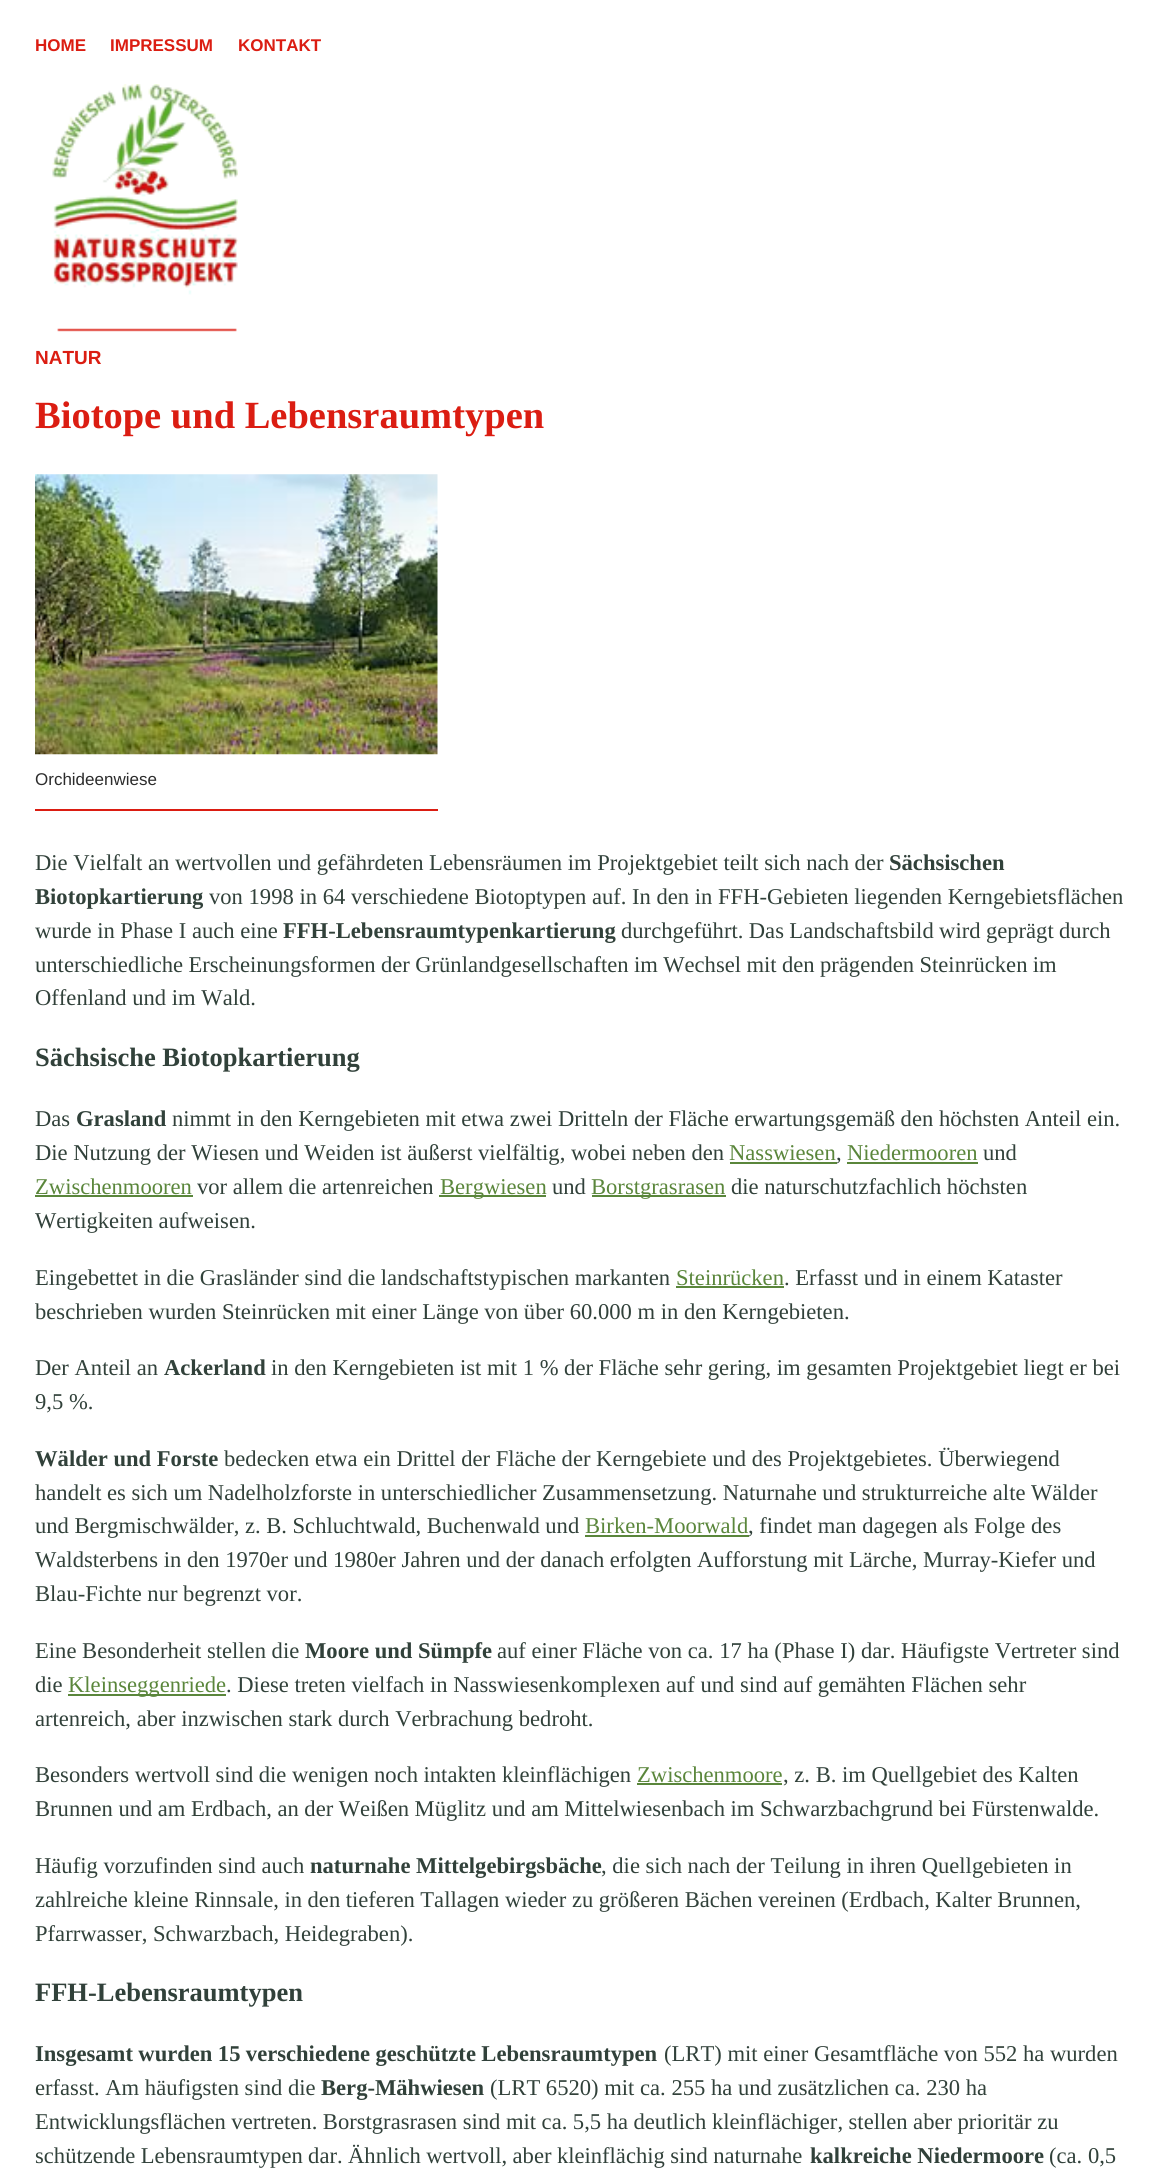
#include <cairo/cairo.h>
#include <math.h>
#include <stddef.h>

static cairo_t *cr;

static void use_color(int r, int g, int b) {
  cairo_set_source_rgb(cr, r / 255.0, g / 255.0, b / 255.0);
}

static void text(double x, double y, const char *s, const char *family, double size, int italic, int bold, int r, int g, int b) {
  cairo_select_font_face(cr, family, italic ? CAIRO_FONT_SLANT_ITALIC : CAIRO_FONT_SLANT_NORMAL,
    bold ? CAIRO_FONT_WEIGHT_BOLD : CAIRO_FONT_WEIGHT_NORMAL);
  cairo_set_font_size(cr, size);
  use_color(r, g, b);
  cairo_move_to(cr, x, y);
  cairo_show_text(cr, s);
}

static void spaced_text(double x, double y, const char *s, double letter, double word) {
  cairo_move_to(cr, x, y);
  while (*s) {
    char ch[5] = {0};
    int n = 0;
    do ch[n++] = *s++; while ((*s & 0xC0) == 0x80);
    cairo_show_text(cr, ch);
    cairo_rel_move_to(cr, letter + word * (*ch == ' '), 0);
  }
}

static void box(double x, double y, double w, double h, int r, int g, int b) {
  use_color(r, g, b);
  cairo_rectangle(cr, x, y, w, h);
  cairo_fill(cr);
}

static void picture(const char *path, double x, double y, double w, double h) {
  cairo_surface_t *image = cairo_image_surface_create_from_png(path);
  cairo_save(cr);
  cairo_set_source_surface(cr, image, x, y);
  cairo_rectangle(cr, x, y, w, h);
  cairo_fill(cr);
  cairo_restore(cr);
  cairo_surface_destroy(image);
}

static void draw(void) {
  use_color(255, 255, 255);
  cairo_paint(cr);
  picture("img_01.png", 52, 84, 186, 248);
  box(35, 809, 403, 2, 219, 29, 18);
  picture("img_02.png", 35, 474, 403, 281);
  box(730, 1162, 107, 2, 90, 134, 59);
  box(847, 1162, 131, 2, 90, 134, 59);
  box(35, 1195, 158, 2, 90, 134, 59);
  box(439, 1195, 107, 2, 90, 134, 59);
  box(592, 1195, 134, 2, 90, 134, 59);
  box(676, 1286, 108, 2, 90, 134, 59);
  box(585, 1535, 164, 2, 90, 134, 59);
  box(68, 1694, 158, 2, 90, 134, 59);
  box(637, 1783, 145, 2, 90, 134, 59);
  text(35, 51, "HOME", "Liberation Sans", 17, 0, 1, 219, 29, 18);
  text(110, 51, "IMPRESSUM", "Liberation Sans", 17, 0, 1, 219, 29, 18);
  text(238, 51, "KONTAKT", "Liberation Sans", 17, 0, 1, 219, 29, 18);
  text(35, 364, "NATUR", "Liberation Sans", 19, 0, 1, 219, 29, 18);
  text(35, 428, "Biotope und Lebensraumtypen", "Liberation Serif", 38.5, 0, 1, 219, 29, 18);
  text(35, 785, "Orchideenwiese", "Liberation Sans", 17, 0, 0, 44, 44, 44);
  text(35, 870, "Die Vielfalt an wertvollen und gefährdeten Lebensräumen im Projektgebiet teilt sich nach der", "Liberation Serif", 22.6, 0, 0, 49, 65, 58);
  text(889, 870, "Sächsischen", "Liberation Serif", 22.6, 0, 1, 49, 65, 58);
  text(35, 904, "Biotopkartierung", "Liberation Serif", 22.6, 0, 1, 49, 65, 58);
  text(209, 904, "von 1998 in 64 verschiedene Biotoptypen auf. In den in FFH-Gebieten liegenden Kerngebietsflächen", "Liberation Serif", 22.6, 0, 0, 49, 65, 58);
  text(35, 938, "wurde in Phase I auch eine", "Liberation Serif", 22.6, 0, 0, 49, 65, 58);
  text(283, 938, "FFH-Lebensraumtypenkartierung", "Liberation Serif", 22.6, 0, 1, 49, 65, 58);
  cairo_select_font_face(cr, "Liberation Serif", CAIRO_FONT_SLANT_NORMAL, CAIRO_FONT_WEIGHT_NORMAL);
  spaced_text(621, 938, "durchgeführt. Das Landschaftsbild wird geprägt durch", 0, -0.25);
  spaced_text(35, 972, "unterschiedliche Erscheinungsformen der Grünlandgesellschaften im Wechsel mit den prägenden Steinrücken im", 0, -0.25);
  text(35, 1005, "Offenland und im Wald.", "Liberation Serif", 22.6, 0, 0, 49, 65, 58);
  text(35, 1066, "Sächsische Biotopkartierung", "Liberation Serif", 26.5, 0, 1, 49, 65, 58);
  text(35, 1126, "Das", "Liberation Serif", 22.6, 0, 0, 49, 65, 58);
  text(76, 1126, "Grasland", "Liberation Serif", 22.6, 0, 1, 49, 65, 58);
  text(172, 1126, "nimmt in den Kerngebieten mit etwa zwei Dritteln der Fläche erwartungsgemäß den höchsten Anteil ein.", "Liberation Serif", 22.6, 0, 0, 49, 65, 58);
  text(35, 1160, "Die Nutzung der Wiesen und Weiden ist äußerst vielfältig, wobei neben den", "Liberation Serif", 22.6, 0, 0, 49, 65, 58);
  text(729, 1160, "Nasswiesen", "Liberation Serif", 22.6, 0, 0, 90, 134, 59);
  text(836, 1160, ",", "Liberation Serif", 22.6, 0, 0, 49, 65, 58);
  text(847, 1160, "Niedermooren", "Liberation Serif", 22.6, 0, 0, 90, 134, 59);
  text(983, 1160, "und", "Liberation Serif", 22.6, 0, 0, 49, 65, 58);
  text(35, 1194, "Zwischenmooren", "Liberation Serif", 22.6, 0, 0, 90, 134, 59);
  text(197, 1194, "vor allem die artenreichen", "Liberation Serif", 22.6, 0, 0, 49, 65, 58);
  text(440, 1194, "Bergwiesen", "Liberation Serif", 22.6, 0, 0, 90, 134, 59);
  text(552, 1194, "und", "Liberation Serif", 22.6, 0, 0, 49, 65, 58);
  text(591, 1194, "Borstgrasrasen", "Liberation Serif", 22.6, 0, 0, 90, 134, 59);
  text(731, 1194, "die naturschutzfachlich höchsten", "Liberation Serif", 22.6, 0, 0, 49, 65, 58);
  text(35, 1228, "Wertigkeiten aufweisen.", "Liberation Serif", 22.6, 0, 0, 49, 65, 58);
  spaced_text(35, 1285, "Eingebettet in die Grasländer sind die landschaftstypischen markanten", 0, -0.1);
  text(676, 1285, "Steinrücken", "Liberation Serif", 22.6, 0, 0, 90, 134, 59);
  text(784, 1285, ". Erfasst und in einem Kataster", "Liberation Serif", 22.6, 0, 0, 49, 65, 58);
  text(35, 1319, "beschrieben wurden Steinrücken mit einer Länge von über 60.000 m in den Kerngebieten.", "Liberation Serif", 22.6, 0, 0, 49, 65, 58);
  text(35, 1375, "Der Anteil an", "Liberation Serif", 22.6, 0, 0, 49, 65, 58);
  text(164, 1375, "Ackerland", "Liberation Serif", 22.6, 0, 1, 49, 65, 58);
  text(271, 1375, "in den Kerngebieten ist mit 1 % der Fläche sehr gering, im gesamten Projektgebiet liegt er bei", "Liberation Serif", 22.6, 0, 0, 49, 65, 58);
  text(35, 1409, "9,5 %.", "Liberation Serif", 22.6, 0, 0, 49, 65, 58);
  text(35, 1466, "Wälder und Forste", "Liberation Serif", 22.6, 0, 1, 49, 65, 58);
  text(224, 1466, "bedecken etwa ein Drittel der Fläche der Kerngebiete und des Projektgebietes. Überwiegend", "Liberation Serif", 22.6, 0, 0, 49, 65, 58);
  spaced_text(35, 1500, "handelt es sich um Nadelholzforste in unterschiedlicher Zusammensetzung. Naturnahe und strukturreiche alte Wälder", 0, -0.1);
  spaced_text(35, 1533, "und Bergmischwälder, z. B. Schluchtwald, Buchenwald und", 0, -0.1);
  text(585, 1533, "Birken-Moorwald", "Liberation Serif", 22.6, 0, 0, 90, 134, 59);
  text(748, 1533, ", findet man dagegen als Folge des", "Liberation Serif", 22.6, 0, 0, 49, 65, 58);
  text(35, 1567, "Waldsterbens in den 1970er und 1980er Jahren und der danach erfolgten Aufforstung mit Lärche, Murray-Kiefer und", "Liberation Serif", 22.6, 0, 0, 49, 65, 58);
  text(35, 1601, "Blau-Fichte nur begrenzt vor.", "Liberation Serif", 22.6, 0, 0, 49, 65, 58);
  text(35, 1658, "Eine Besonderheit stellen die", "Liberation Serif", 22.6, 0, 0, 49, 65, 58);
  text(305, 1658, "Moore und Sümpfe", "Liberation Serif", 22.6, 0, 1, 49, 65, 58);
  text(497, 1658, "auf einer Fläche von ca. 17 ha (Phase I) dar. Häufigste Vertreter sind", "Liberation Serif", 22.6, 0, 0, 49, 65, 58);
  text(35, 1692, "die", "Liberation Serif", 22.6, 0, 0, 49, 65, 58);
  text(68, 1692, "Kleinseggenriede", "Liberation Serif", 22.6, 0, 0, 90, 134, 59);
  text(226, 1692, ". Diese treten vielfach in Nasswiesenkomplexen auf und sind auf gemähten Flächen sehr", "Liberation Serif", 22.6, 0, 0, 49, 65, 58);
  text(35, 1726, "artenreich, aber inzwischen stark durch Verbrachung bedroht.", "Liberation Serif", 22.6, 0, 0, 49, 65, 58);
  spaced_text(35, 1782, "Besonders wertvoll sind die wenigen noch intakten kleinflächigen", 0, -0.1);
  text(637, 1782, "Zwischenmoore", "Liberation Serif", 22.6, 0, 0, 90, 134, 59);
  text(783, 1782, ", z. B. im Quellgebiet des Kalten", "Liberation Serif", 22.6, 0, 0, 49, 65, 58);
  spaced_text(35, 1816, "Brunnen und am Erdbach, an der Weißen Müglitz und am Mittelwiesenbach im Schwarzbachgrund bei Fürstenwalde.", 0, -0.1);
  text(35, 1873, "Häufig vorzufinden sind auch", "Liberation Serif", 22.6, 0, 0, 49, 65, 58);
  text(310, 1873, "naturnahe Mittelgebirgsbäche", "Liberation Serif", 22.6, 0, 1, 49, 65, 58);
  text(601, 1873, ", die sich nach der Teilung in ihren Quellgebieten in", "Liberation Serif", 22.6, 0, 0, 49, 65, 58);
  spaced_text(35, 1907, "zahlreiche kleine Rinnsale, in den tieferen Tallagen wieder zu größeren Bächen vereinen (Erdbach, Kalter Brunnen,", 0, -0.1);
  text(35, 1941, "Pfarrwasser, Schwarzbach, Heidegraben).", "Liberation Serif", 22.6, 0, 0, 49, 65, 58);
  text(35, 2001, "FFH-Lebensraumtypen", "Liberation Serif", 26.5, 0, 1, 49, 65, 58);
  cairo_set_font_size(cr, 22.6);
  spaced_text(35, 2061, "Insgesamt wurden 15 verschiedene geschützte Lebensraumtypen", 0, -0.25);
  text(664, 2061, "(LRT) mit einer Gesamtfläche von 552 ha wurden", "Liberation Serif", 22.6, 0, 0, 49, 65, 58);
  text(35, 2095, "erfasst. Am häufigsten sind die", "Liberation Serif", 22.6, 0, 0, 49, 65, 58);
  text(321, 2095, "Berg-Mähwiesen", "Liberation Serif", 22.6, 0, 1, 49, 65, 58);
  text(490, 2095, "(LRT 6520) mit ca. 255 ha und zusätzlichen ca. 230 ha", "Liberation Serif", 22.6, 0, 0, 49, 65, 58);
  spaced_text(35, 2129, "Entwicklungsflächen vertreten. Borstgrasrasen sind mit ca. 5,5 ha deutlich kleinflächiger, stellen aber prioritär zu", 0, -0.1);
  spaced_text(35, 2163, "schützende Lebensraumtypen dar. Ähnlich wertvoll, aber kleinflächig sind naturnahe", 0, -0.25);
  text(810, 2163, "kalkreiche Niedermoore", "Liberation Serif", 22.6, 0, 1, 49, 65, 58);
  text(1049, 2163, "(ca. 0,5", "Liberation Serif", 22.6, 0, 0, 49, 65, 58);
}

int main(void) {
  cairo_surface_t *surface = cairo_image_surface_create(CAIRO_FORMAT_RGB24, 1162, 2173);
  cr = cairo_create(surface);
  cairo_font_options_t *options = cairo_font_options_create();
  cairo_font_options_set_hint_metrics(options, CAIRO_HINT_METRICS_OFF);
  cairo_font_options_set_hint_style(options, CAIRO_HINT_STYLE_NONE);
  cairo_set_font_options(cr, options);
  cairo_set_miter_limit(cr, 4);
  draw();
  cairo_surface_write_to_png(surface, "out.png");
  cairo_font_options_destroy(options);
  cairo_destroy(cr);
  cairo_surface_destroy(surface);
  return 0;
}
